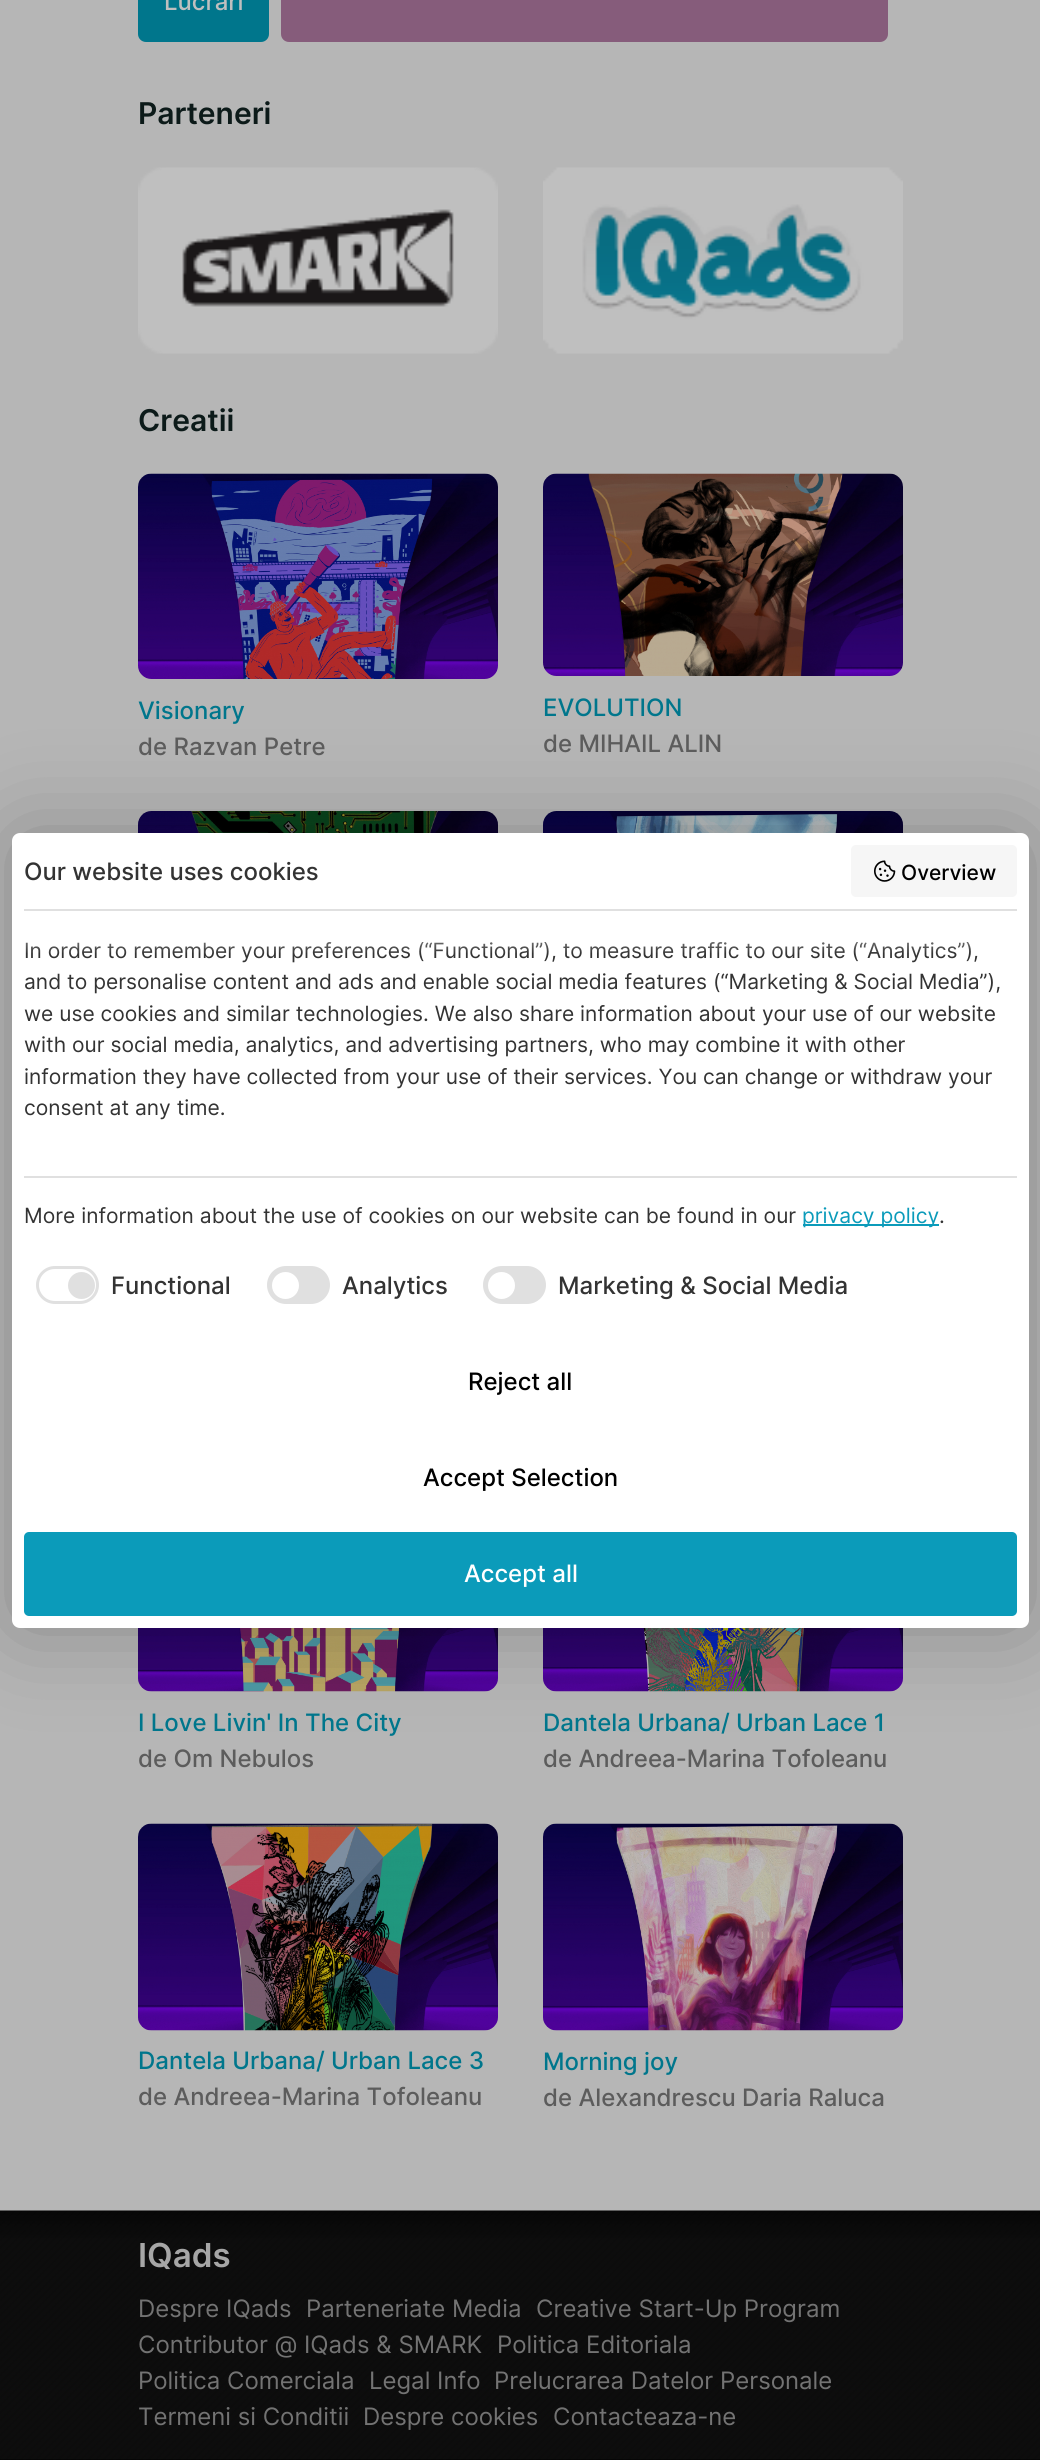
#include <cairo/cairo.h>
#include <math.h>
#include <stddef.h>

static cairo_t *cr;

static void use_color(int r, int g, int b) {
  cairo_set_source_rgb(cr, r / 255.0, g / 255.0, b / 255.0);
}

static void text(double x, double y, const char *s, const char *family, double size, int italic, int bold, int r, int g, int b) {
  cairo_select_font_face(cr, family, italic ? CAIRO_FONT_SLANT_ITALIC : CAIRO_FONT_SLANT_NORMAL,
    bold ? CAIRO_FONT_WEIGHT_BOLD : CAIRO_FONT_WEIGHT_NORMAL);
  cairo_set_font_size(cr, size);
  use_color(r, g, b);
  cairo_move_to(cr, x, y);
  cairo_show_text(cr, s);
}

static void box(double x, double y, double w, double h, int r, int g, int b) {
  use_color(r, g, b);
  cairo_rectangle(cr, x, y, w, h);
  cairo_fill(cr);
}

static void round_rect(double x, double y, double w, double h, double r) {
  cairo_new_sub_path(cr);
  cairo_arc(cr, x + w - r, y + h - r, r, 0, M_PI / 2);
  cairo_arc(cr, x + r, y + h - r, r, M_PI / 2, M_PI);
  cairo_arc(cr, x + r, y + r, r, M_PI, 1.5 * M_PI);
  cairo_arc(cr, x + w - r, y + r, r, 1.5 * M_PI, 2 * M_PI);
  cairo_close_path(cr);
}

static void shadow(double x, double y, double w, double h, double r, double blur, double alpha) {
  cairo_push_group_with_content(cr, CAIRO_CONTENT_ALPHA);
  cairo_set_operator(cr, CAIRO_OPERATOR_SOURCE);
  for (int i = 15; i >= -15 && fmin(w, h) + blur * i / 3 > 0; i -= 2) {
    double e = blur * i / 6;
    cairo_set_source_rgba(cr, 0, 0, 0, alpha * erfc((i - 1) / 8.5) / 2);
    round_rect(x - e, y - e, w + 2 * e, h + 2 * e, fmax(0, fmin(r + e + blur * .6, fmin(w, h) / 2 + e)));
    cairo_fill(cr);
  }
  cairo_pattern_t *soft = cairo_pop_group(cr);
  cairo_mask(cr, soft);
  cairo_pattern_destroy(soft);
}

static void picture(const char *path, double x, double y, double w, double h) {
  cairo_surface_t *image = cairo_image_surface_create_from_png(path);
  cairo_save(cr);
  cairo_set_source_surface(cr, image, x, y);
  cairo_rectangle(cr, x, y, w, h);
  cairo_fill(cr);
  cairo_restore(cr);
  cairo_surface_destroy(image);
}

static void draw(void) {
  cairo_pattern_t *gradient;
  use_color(182, 182, 182);
  cairo_paint(cr);
  use_color(0, 118, 140);
  round_rect(139, -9, 129, 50, 7);
  cairo_fill_preserve(cr);
  cairo_stroke(cr);
  use_color(134, 92, 123);
  round_rect(282, -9, 605, 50, 7);
  cairo_fill_preserve(cr);
  cairo_stroke(cr);
  picture("img_01.png", 138, 167, 360, 187);
  picture("img_02.png", 543, 167, 360, 187);
  picture("img_03.png", 138, 473, 360, 206);
  picture("img_04.png", 543, 473, 360, 203);
  picture("img_05.png", 138, 811, 360, 22);
  picture("img_06.png", 543, 811, 360, 22);
  picture("img_07.png", 138, 1628, 360, 64);
  picture("img_08.png", 543, 1628, 360, 64);
  picture("img_09.png", 138, 1823, 360, 208);
  picture("img_10.png", 543, 1823, 360, 208);
  use_color(0, 0, 0);
  shadow(12, 833, 1017, 795, 8, 48, 0.25);
  use_color(255, 255, 255);
  round_rect(12, 833, 1017, 795, 8);
  cairo_fill(cr);
  use_color(246, 246, 246);
  round_rect(851, 845, 166, 52, 5);
  cairo_fill(cr);
  picture("img_11.png", 874, 860, 22, 22);
  box(24, 909, 993, 2, 224, 224, 224);
  box(24, 1176, 993, 2, 224, 224, 224);
  box(803, 1224, 136, 2, 11, 155, 186);
  round_rect(37.5, 1267.5, 60, 35, 17.5);
  use_color(224, 224, 224);
  cairo_set_line_width(cr, 3);
  cairo_stroke(cr);
  cairo_arc(cr, 81.5, 1285.5, 13.5, 0, 2 * M_PI);
  cairo_fill(cr);
  round_rect(268.5, 1267.5, 60, 35, 17.5);
  cairo_fill_preserve(cr);
  cairo_stroke(cr);
  use_color(255, 255, 255);
  cairo_arc(cr, 285.5, 1285.5, 13.5, 0, 2 * M_PI);
  cairo_fill(cr);
  use_color(224, 224, 224);
  round_rect(484.5, 1267.5, 60, 35, 17.5);
  cairo_fill_preserve(cr);
  cairo_stroke(cr);
  use_color(255, 255, 255);
  cairo_arc(cr, 501.5, 1285.5, 13.5, 0, 2 * M_PI);
  cairo_fill(cr);
  use_color(11, 155, 186);
  round_rect(24, 1532, 993, 84, 5);
  cairo_fill(cr);
  box(0, 2459, 1040, 1, 0, 0, 0);
  picture("img_12.png", 0, 2210, 1040, 250);
  text(164, 10, "Lucrari", "Inter Medium", 24, 0, 0, 191, 191, 191);
  text(138, 124, "Parteneri", "Inter SemiBold", 30, 0, 0, 12, 26, 25);
  text(138, 431, "Creatii", "Inter SemiBold", 30, 0, 0, 12, 26, 25);
  text(138, 719, "Visionary", "Inter Medium", 24, 0, 0, 0, 118, 140);
  text(138, 755, "de Razvan Petre", "Inter Medium", 24, 0, 0, 92, 92, 92);
  text(543, 716, "EVOLUTION", "Inter Medium", 24, 0, 0, 0, 118, 140);
  text(543, 752, "de MIHAIL ALIN", "Inter Medium", 24, 0, 0, 92, 92, 92);
  text(138, 1731, "I Love Livin' In The City", "Inter Medium", 24, 0, 0, 0, 118, 140);
  text(138, 1767, "de Om Nebulos", "Inter Medium", 24, 0, 0, 92, 92, 92);
  text(543, 1731, "Dantela Urbana/ Urban Lace 1", "Inter Medium", 24, 0, 0, 0, 118, 140);
  text(543, 1767, "de Andreea-Marina Tofoleanu", "Inter Medium", 24, 0, 0, 92, 92, 92);
  text(138, 2069, "Dantela Urbana/ Urban Lace 3", "Inter Medium", 24, 0, 0, 0, 118, 140);
  text(138, 2105, "de Andreea-Marina Tofoleanu", "Inter Medium", 24, 0, 0, 92, 92, 92);
  text(543, 2070, "Morning joy", "Inter Medium", 24, 0, 0, 0, 118, 140);
  text(543, 2106, "de Alexandrescu Daria Raluca", "Inter Medium", 24, 0, 0, 92, 92, 92);
  text(24, 880, "Our website uses cookies", "Inter Medium", 24, 0, 0, 51, 51, 51);
  text(901, 880, "Overview", "Inter Medium", 21, 0, 0, 0, 0, 0);
  text(24, 958, "In order to remember your preferences (“Functional”), to measure traffic to our site (“Analytics”),", "Inter", 21, 0, 0, 51, 51, 51);
  text(24, 989, "and to personalise content and ads and enable social media features (“Marketing & Social Media”),", "Inter", 21, 0, 0, 51, 51, 51);
  text(24, 1021, "we use cookies and similar technologies. We also share information about your use of our website", "Inter", 21, 0, 0, 51, 51, 51);
  text(24, 1052, "with our social media, analytics, and advertising partners, who may combine it with other", "Inter", 21, 0, 0, 51, 51, 51);
  text(24, 1084, "information they have collected from your use of their services. You can change or withdraw your", "Inter", 21, 0, 0, 51, 51, 51);
  text(24, 1115, "consent at any time.", "Inter", 21, 0, 0, 51, 51, 51);
  gradient = cairo_pattern_create_linear(521, 954, 521, 909);
  cairo_pattern_add_color_stop_rgba(gradient, 0, 1, 1, 1, 0);
  cairo_pattern_add_color_stop_rgba(gradient, 1, 1, 1, 1, 1);
  cairo_set_source(cr, gradient);
  cairo_pattern_destroy(gradient);
  cairo_rectangle(cr, 25, 942, 946, 11);
  cairo_fill(cr);
  text(24, 1223, "More information about the use of cookies on our website can be found in our", "Inter", 21, 0, 0, 51, 51, 51);
  text(802, 1223, "privacy policy", "Inter", 21, 0, 0, 11, 155, 186);
  text(939, 1223, ".", "Inter", 21, 0, 0, 51, 51, 51);
  text(111, 1294, "Functional", "Inter Medium", 24, 0, 0, 51, 51, 51);
  text(342, 1294, "Analytics", "Inter Medium", 24, 0, 0, 51, 51, 51);
  text(558, 1294, "Marketing & Social Media", "Inter Medium", 24, 0, 0, 51, 51, 51);
  text(468, 1390, "Reject all", "Inter Medium", 24, 0, 0, 0, 0, 0);
  text(423, 1486, "Accept Selection", "Inter Medium", 24, 0, 0, 0, 0, 0);
  text(464, 1582, "Accept all", "Inter Medium", 24, 0, 0, 255, 255, 255);
  text(138, 2267, "IQads", "Inter SemiBold", 33, 0, 0, 166, 166, 166);
  text(138, 2317, "Despre IQads", "Inter", 24, 0, 0, 115, 115, 115);
  text(306, 2317, "Parteneriate Media", "Inter", 24, 0, 0, 115, 115, 115);
  text(536, 2317, "Creative Start-Up Program", "Inter", 24, 0, 0, 115, 115, 115);
  text(138, 2353, "Contributor @ IQads & SMARK", "Inter", 24, 0, 0, 115, 115, 115);
  text(497, 2353, "Politica Editoriala", "Inter", 24, 0, 0, 115, 115, 115);
  text(138, 2389, "Politica Comerciala", "Inter", 24, 0, 0, 115, 115, 115);
  text(369, 2389, "Legal Info", "Inter", 24, 0, 0, 115, 115, 115);
  text(494, 2389, "Prelucrarea Datelor Personale", "Inter", 24, 0, 0, 115, 115, 115);
  text(138, 2425, "Termeni si Conditii", "Inter", 24, 0, 0, 115, 115, 115);
  text(363, 2425, "Despre cookies", "Inter", 24, 0, 0, 115, 115, 115);
  text(553, 2425, "Contacteaza-ne", "Inter", 24, 0, 0, 115, 115, 115);
}

int main(void) {
  cairo_surface_t *surface = cairo_image_surface_create(CAIRO_FORMAT_RGB24, 1040, 2460);
  cr = cairo_create(surface);
  cairo_font_options_t *options = cairo_font_options_create();
  cairo_font_options_set_hint_metrics(options, CAIRO_HINT_METRICS_OFF);
  cairo_font_options_set_hint_style(options, CAIRO_HINT_STYLE_NONE);
  cairo_set_font_options(cr, options);
  cairo_set_miter_limit(cr, 4);
  draw();
  cairo_surface_write_to_png(surface, "out.png");
  cairo_font_options_destroy(options);
  cairo_destroy(cr);
  cairo_surface_destroy(surface);
  return 0;
}
